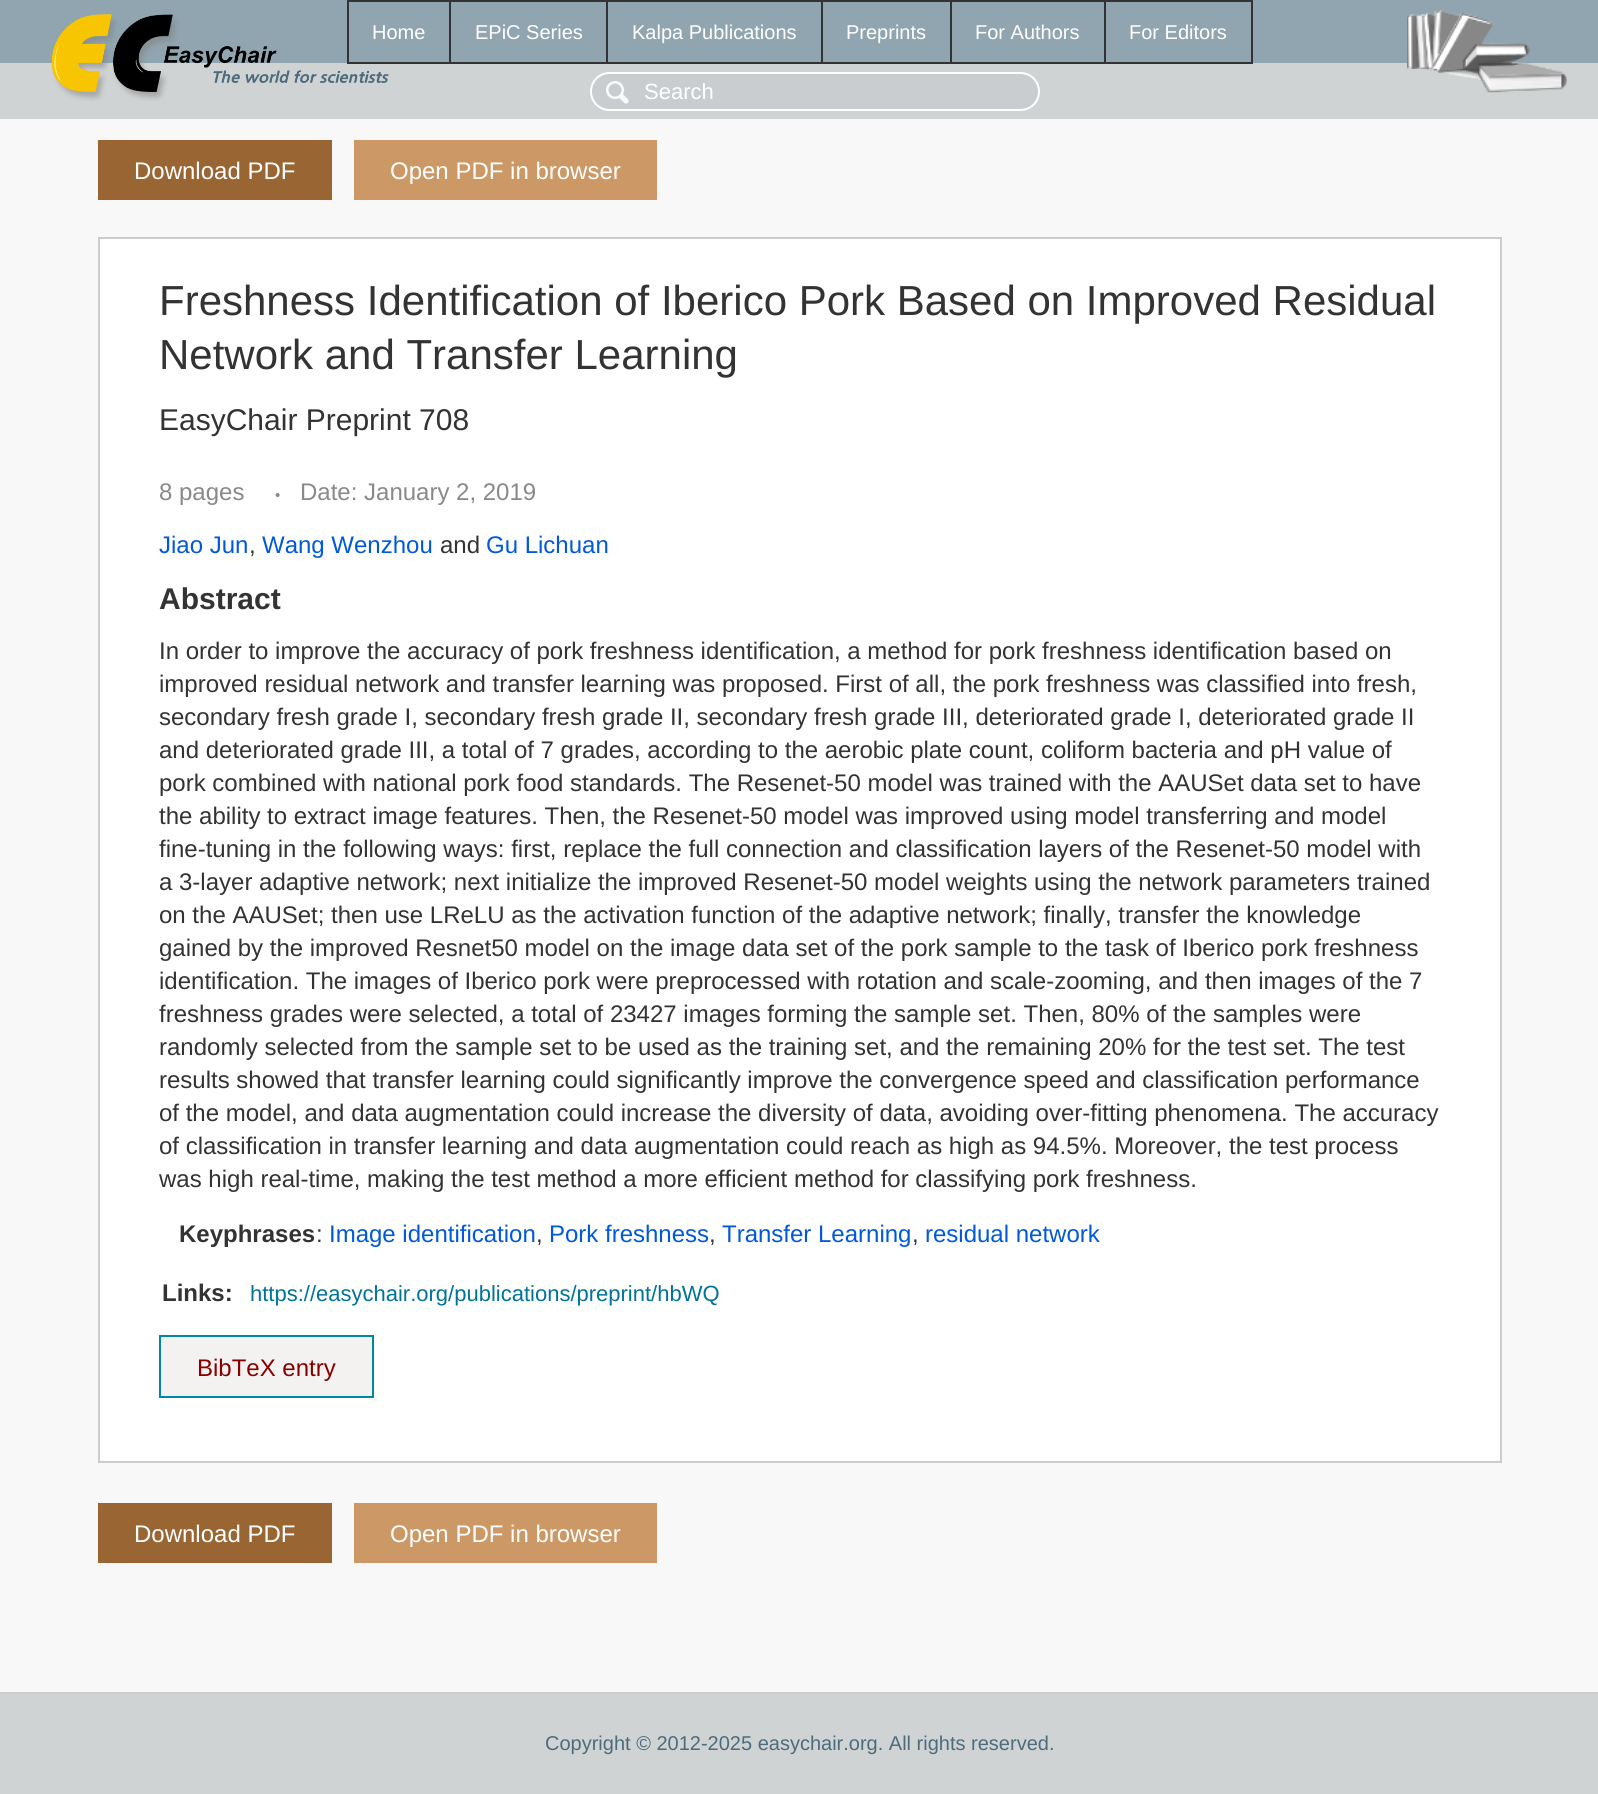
#include <cairo/cairo.h>
#include <math.h>
#include <stddef.h>

static cairo_t *cr;

static void use_color(int r, int g, int b) {
  cairo_set_source_rgb(cr, r / 255.0, g / 255.0, b / 255.0);
}

static void text(double x, double y, const char *s, const char *family, double size, int italic, int bold, int r, int g, int b) {
  cairo_select_font_face(cr, family, italic ? CAIRO_FONT_SLANT_ITALIC : CAIRO_FONT_SLANT_NORMAL,
    bold ? CAIRO_FONT_WEIGHT_BOLD : CAIRO_FONT_WEIGHT_NORMAL);
  cairo_set_font_size(cr, size);
  use_color(r, g, b);
  cairo_move_to(cr, x, y);
  cairo_show_text(cr, s);
}

static void box(double x, double y, double w, double h, int r, int g, int b) {
  use_color(r, g, b);
  cairo_rectangle(cr, x, y, w, h);
  cairo_fill(cr);
}

static void round_rect(double x, double y, double w, double h, double r) {
  cairo_new_sub_path(cr);
  cairo_arc(cr, x + w - r, y + h - r, r, 0, M_PI / 2);
  cairo_arc(cr, x + r, y + h - r, r, M_PI / 2, M_PI);
  cairo_arc(cr, x + r, y + r, r, M_PI, 1.5 * M_PI);
  cairo_arc(cr, x + w - r, y + r, r, 1.5 * M_PI, 2 * M_PI);
  cairo_close_path(cr);
}

static void picture(const char *path, double x, double y, double w, double h) {
  cairo_surface_t *image = cairo_image_surface_create_from_png(path);
  cairo_save(cr);
  cairo_set_source_surface(cr, image, x, y);
  cairo_rectangle(cr, x, y, w, h);
  cairo_fill(cr);
  cairo_restore(cr);
  cairo_surface_destroy(image);
}

static void draw(void) {
  use_color(144, 165, 176);
  cairo_paint(cr);
  box(0, 63, 1598, 56, 208, 211, 212);
  picture("img_01.png", 51, 14, 338, 87);
  box(1104, 0, 149, 2, 51, 51, 51);
  box(1251, 0, 2, 63, 51, 51, 51);
  box(1104, 62, 149, 2, 51, 51, 51);
  box(1104, 0, 2, 63, 51, 51, 51);
  box(950, 0, 156, 2, 51, 51, 51);
  box(950, 62, 156, 2, 51, 51, 51);
  box(950, 0, 2, 63, 51, 51, 51);
  box(821, 0, 130, 2, 51, 51, 51);
  box(821, 62, 130, 2, 51, 51, 51);
  box(821, 0, 2, 63, 51, 51, 51);
  box(606, 0, 216, 2, 51, 51, 51);
  box(606, 62, 216, 2, 51, 51, 51);
  box(606, 0, 2, 63, 51, 51, 51);
  box(449, 0, 159, 2, 51, 51, 51);
  box(449, 62, 159, 2, 51, 51, 51);
  box(449, 0, 2, 63, 51, 51, 51);
  box(347, 0, 103, 2, 51, 51, 51);
  box(347, 62, 103, 2, 51, 51, 51);
  box(347, 0, 2, 63, 51, 51, 51);
  picture("img_02.png", 1407, 10, 160, 83);
  use_color(201, 205, 208);
  round_rect(590, 72, 450, 39, 19.5);
  cairo_fill(cr);
  picture("img_03.png", 606, 81, 23, 23);
  round_rect(591, 73, 448, 37, 18.5);
  use_color(255, 255, 255);
  cairo_stroke(cr);
  box(0, 119, 1598, 1573, 248, 248, 248);
  box(98, 140, 234, 60, 153, 102, 51);
  box(354, 140, 303, 60, 204, 153, 102);
  use_color(255, 255, 255);
  cairo_rectangle(cr, 99, 238, 1402, 1224);
  cairo_fill_preserve(cr);
  use_color(204, 204, 204);
  cairo_stroke(cr);
  use_color(243, 242, 241);
  cairo_rectangle(cr, 160, 1336, 213, 61);
  cairo_fill_preserve(cr);
  use_color(0, 134, 166);
  cairo_stroke(cr);
  box(98, 1503, 234, 60, 153, 102, 51);
  box(354, 1503, 303, 60, 204, 153, 102);
  box(0, 1694, 1598, 100, 208, 211, 212);
  box(0, 1692, 1598, 2, 204, 204, 204);
  text(372, 39, "Home", "Liberation Sans", 20, 0, 0, 255, 255, 255);
  text(475, 39, "EPiC Series", "Liberation Sans", 20, 0, 0, 255, 255, 255);
  text(632, 39, "Kalpa Publications", "Liberation Sans", 20, 0, 0, 255, 255, 255);
  text(846, 39, "Preprints", "Liberation Sans", 20, 0, 0, 255, 255, 255);
  text(975, 39, "For Authors", "Liberation Sans", 20, 0, 0, 255, 255, 255);
  text(1129, 39, "For Editors", "Liberation Sans", 20, 0, 0, 255, 255, 255);
  text(644, 99, "Search", "Liberation Sans", 22, 0, 0, 255, 255, 255);
  text(134, 179, "Download PDF", "Liberation Sans", 24, 0, 0, 255, 255, 255);
  text(390, 179, "Open PDF in browser", "Liberation Sans", 24, 0, 0, 255, 255, 255);
  text(159, 315, "Freshness Identification of Iberico Pork Based on Improved Residual", "Liberation Sans", 42, 0, 0, 51, 51, 51);
  text(159, 369, "Network and Transfer Learning", "Liberation Sans", 42, 0, 0, 51, 51, 51);
  text(159, 430, "EasyChair Preprint 708", "Liberation Sans", 30, 0, 0, 51, 51, 51);
  text(159, 500, "8 pages", "Liberation Sans", 24, 0, 0, 137, 137, 137);
  text(275, 500, "•", "Liberation Sans", 15, 0, 0, 137, 137, 137);
  text(300, 500, "Date: January 2, 2019", "Liberation Sans", 24, 0, 0, 137, 137, 137);
  text(159, 553, "Jiao Jun", "Liberation Sans", 24, 0, 0, 0, 89, 219);
  text(249, 553, ",", "Liberation Sans", 24, 0, 0, 51, 51, 51);
  text(262, 553, "Wang Wenzhou", "Liberation Sans", 24, 0, 0, 0, 89, 219);
  text(440, 553, "and", "Liberation Sans", 24, 0, 0, 51, 51, 51);
  text(486, 553, "Gu Lichuan", "Liberation Sans", 24, 0, 0, 0, 89, 219);
  text(159, 609, "Abstract", "Liberation Sans", 30, 0, 1, 51, 51, 51);
  text(159, 659, "In order to improve the accuracy of pork freshness identification, a method for pork freshness identification based on", "Liberation Sans", 24, 0, 0, 51, 51, 51);
  text(159, 692, "improved residual network and transfer learning was proposed. First of all, the pork freshness was classified into fresh,", "Liberation Sans", 24, 0, 0, 51, 51, 51);
  text(159, 725, "secondary fresh grade I, secondary fresh grade II, secondary fresh grade III, deteriorated grade I, deteriorated grade II", "Liberation Sans", 24, 0, 0, 51, 51, 51);
  text(159, 758, "and deteriorated grade III, a total of 7 grades, according to the aerobic plate count, coliform bacteria and pH value of", "Liberation Sans", 24, 0, 0, 51, 51, 51);
  text(159, 791, "pork combined with national pork food standards. The Resenet-50 model was trained with the AAUSet data set to have", "Liberation Sans", 24, 0, 0, 51, 51, 51);
  text(159, 824, "the ability to extract image features. Then, the Resenet-50 model was improved using model transferring and model", "Liberation Sans", 24, 0, 0, 51, 51, 51);
  text(159, 857, "fine-tuning in the following ways: first, replace the full connection and classification layers of the Resenet-50 model with", "Liberation Sans", 24, 0, 0, 51, 51, 51);
  text(159, 890, "a 3-layer adaptive network; next initialize the improved Resenet-50 model weights using the network parameters trained", "Liberation Sans", 24, 0, 0, 51, 51, 51);
  text(159, 923, "on the AAUSet; then use LReLU as the activation function of the adaptive network; finally, transfer the knowledge", "Liberation Sans", 24, 0, 0, 51, 51, 51);
  text(159, 956, "gained by the improved Resnet50 model on the image data set of the pork sample to the task of Iberico pork freshness", "Liberation Sans", 24, 0, 0, 51, 51, 51);
  text(159, 989, "identification. The images of Iberico pork were preprocessed with rotation and scale-zooming, and then images of the 7", "Liberation Sans", 24, 0, 0, 51, 51, 51);
  text(159, 1022, "freshness grades were selected, a total of 23427 images forming the sample set. Then, 80% of the samples were", "Liberation Sans", 24, 0, 0, 51, 51, 51);
  text(159, 1055, "randomly selected from the sample set to be used as the training set, and the remaining 20% for the test set. The test", "Liberation Sans", 24, 0, 0, 51, 51, 51);
  text(159, 1088, "results showed that transfer learning could significantly improve the convergence speed and classification performance", "Liberation Sans", 24, 0, 0, 51, 51, 51);
  text(159, 1121, "of the model, and data augmentation could increase the diversity of data, avoiding over-fitting phenomena. The accuracy", "Liberation Sans", 24, 0, 0, 51, 51, 51);
  text(159, 1154, "of classification in transfer learning and data augmentation could reach as high as 94.5%. Moreover, the test process", "Liberation Sans", 24, 0, 0, 51, 51, 51);
  text(159, 1187, "was high real-time, making the test method a more efficient method for classifying pork freshness.", "Liberation Sans", 24, 0, 0, 51, 51, 51);
  text(179, 1242, "Keyphrases", "Liberation Sans", 24, 0, 1, 51, 51, 51);
  text(316, 1242, ":", "Liberation Sans", 24, 0, 0, 51, 51, 51);
  text(329, 1242, "Image identification", "Liberation Sans", 24, 0, 0, 0, 89, 219);
  text(536, 1242, ",", "Liberation Sans", 24, 0, 0, 51, 51, 51);
  text(549, 1242, "Pork freshness", "Liberation Sans", 24, 0, 0, 0, 89, 219);
  text(709, 1242, ",", "Liberation Sans", 24, 0, 0, 51, 51, 51);
  text(722, 1242, "Transfer Learning", "Liberation Sans", 24, 0, 0, 0, 89, 219);
  text(912, 1242, ",", "Liberation Sans", 24, 0, 0, 51, 51, 51);
  text(925, 1242, "residual network", "Liberation Sans", 24, 0, 0, 0, 89, 219);
  text(162, 1301, "Links:", "Liberation Sans", 24, 0, 1, 51, 51, 51);
  text(250, 1301, "https://easychair.org/publications/preprint/hbWQ", "Liberation Sans", 22, 0, 0, 0, 115, 152);
  text(197, 1376, "BibTeX entry", "Liberation Sans", 24, 0, 0, 136, 0, 0);
  text(134, 1542, "Download PDF", "Liberation Sans", 24, 0, 0, 255, 255, 255);
  text(390, 1542, "Open PDF in browser", "Liberation Sans", 24, 0, 0, 255, 255, 255);
  text(545, 1750, "Copyright © 2012-2025 easychair.org. All rights reserved.", "Liberation Sans", 20, 0, 0, 76, 108, 124);
}

int main(void) {
  cairo_surface_t *surface = cairo_image_surface_create(CAIRO_FORMAT_RGB24, 1598, 1794);
  cr = cairo_create(surface);
  cairo_font_options_t *options = cairo_font_options_create();
  cairo_font_options_set_hint_metrics(options, CAIRO_HINT_METRICS_OFF);
  cairo_font_options_set_hint_style(options, CAIRO_HINT_STYLE_NONE);
  cairo_set_font_options(cr, options);
  cairo_set_miter_limit(cr, 4);
  draw();
  cairo_surface_write_to_png(surface, "out.png");
  cairo_font_options_destroy(options);
  cairo_destroy(cr);
  cairo_surface_destroy(surface);
  return 0;
}
